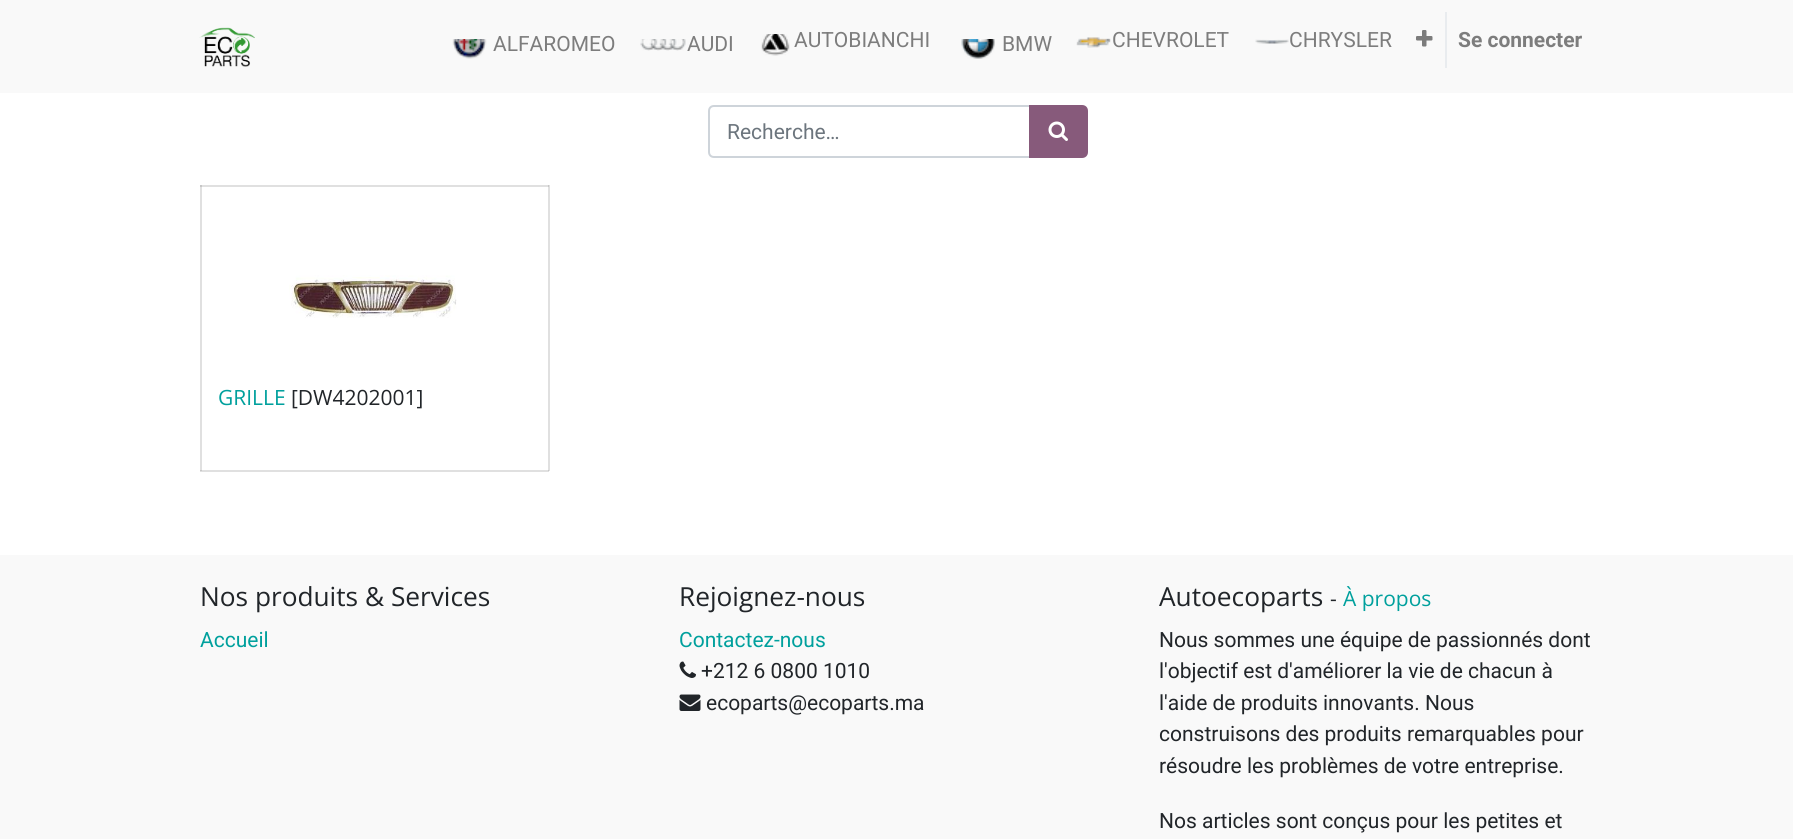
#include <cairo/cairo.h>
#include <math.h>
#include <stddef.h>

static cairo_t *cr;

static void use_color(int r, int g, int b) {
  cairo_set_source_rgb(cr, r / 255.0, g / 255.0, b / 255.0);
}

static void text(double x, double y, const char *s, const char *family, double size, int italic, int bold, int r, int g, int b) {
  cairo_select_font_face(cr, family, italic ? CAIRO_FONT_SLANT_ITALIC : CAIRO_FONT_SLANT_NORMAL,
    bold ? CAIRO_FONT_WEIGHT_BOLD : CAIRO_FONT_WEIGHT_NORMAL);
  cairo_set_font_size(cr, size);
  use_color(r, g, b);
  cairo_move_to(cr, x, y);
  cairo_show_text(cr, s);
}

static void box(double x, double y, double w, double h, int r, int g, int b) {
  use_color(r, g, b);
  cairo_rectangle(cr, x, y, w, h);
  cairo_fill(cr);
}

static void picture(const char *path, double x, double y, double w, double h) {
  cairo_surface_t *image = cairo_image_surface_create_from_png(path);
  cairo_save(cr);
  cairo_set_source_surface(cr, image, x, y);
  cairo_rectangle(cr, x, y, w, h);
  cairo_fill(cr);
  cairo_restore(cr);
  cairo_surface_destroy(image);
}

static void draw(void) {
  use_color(255, 255, 255);
  cairo_paint(cr);
  box(200, 185, 2, 286, 224, 224, 224);
  box(200, 470, 349, 2, 224, 224, 224);
  box(200, 470, 2, 1, 199, 199, 199);
  box(548, 185, 2, 286, 224, 224, 224);
  box(548, 470, 1, 1, 199, 199, 199);
  box(0, 0, 1793, 93, 249, 249, 249);
  picture("img_01.png", 199, 27, 56, 40);
  picture("img_02.png", 452, 39, 35, 20);
  picture("img_03.png", 640, 39, 46, 12);
  picture("img_04.png", 761, 34, 29, 22);
  picture("img_05.png", 961, 39, 34, 20);
  picture("img_06.png", 1076, 37, 35, 11);
  picture("img_07.png", 1255, 39, 34, 5);
  picture("img_08.png", 1416, 30, 17, 17);
  box(1445, 12, 2, 56, 233, 236, 239);
  cairo_new_path(cr);
  cairo_move_to(cr, 714, 106);
  cairo_line_to(cr, 1030, 106);
  cairo_line_to(cr, 1030, 157);
  cairo_line_to(cr, 714, 157);
  cairo_curve_to(cr, 711, 157, 709, 155, 709, 152);
  cairo_line_to(cr, 709, 111);
  cairo_curve_to(cr, 709, 108, 711, 106, 714, 106);
  cairo_close_path(cr);
  use_color(206, 212, 218);
  cairo_stroke(cr);
  use_color(135, 90, 123);
  cairo_new_path(cr);
  cairo_move_to(cr, 1030, 106);
  cairo_line_to(cr, 1082, 106);
  cairo_curve_to(cr, 1085, 106, 1087, 108, 1087, 111);
  cairo_line_to(cr, 1087, 152);
  cairo_curve_to(cr, 1087, 155, 1085, 157, 1082, 157);
  cairo_line_to(cr, 1030, 157);
  cairo_close_path(cr);
  cairo_fill_preserve(cr);
  cairo_stroke(cr);
  picture("img_09.png", 1048, 121, 20, 20);
  box(200, 185, 349, 2, 224, 224, 224);
  box(200, 185, 2, 2, 199, 199, 199);
  box(548, 185, 1, 2, 199, 199, 199);
  picture("img_10.png", 289, 275, 168, 43);
  box(0, 555, 1793, 284, 249, 249, 249);
  picture("img_11.png", 679, 661, 17, 17);
  picture("img_12.png", 679, 694, 22, 17);
  text(493, 51, "ALFAROMEO", "Roboto", 21, 0, 0, 125, 125, 125);
  text(687, 51, "AUDI", "Roboto", 21, 0, 0, 125, 125, 125);
  text(794, 47, "AUTOBIANCHI", "Roboto", 21, 0, 0, 125, 125, 125);
  text(1002, 51, "BMW", "Roboto", 21, 0, 0, 125, 125, 125);
  text(1112, 47, "CHEVROLET", "Roboto", 21, 0, 0, 125, 125, 125);
  text(1289, 47, "CHRYSLER", "Roboto", 21, 0, 0, 125, 125, 125);
  text(1458, 47, "Se connecter", "Roboto", 21, 0, 1, 125, 125, 125);
  text(727, 139, "Recherche…", "Roboto", 21, 0, 0, 108, 117, 125);
  text(218, 405, "GRILLE", "Open Sans", 21, 0, 0, 0, 160, 157);
  text(291, 405, "[DW4202001]", "Open Sans", 21, 0, 0, 33, 37, 41);
  text(200, 606, "Nos produits & Services", "Open Sans", 26.25, 0, 0, 33, 37, 41);
  text(200, 647, "Accueil", "Roboto", 21, 0, 0, 0, 160, 157);
  text(679, 606, "Rejoignez-nous", "Open Sans", 26.25, 0, 0, 33, 37, 41);
  text(679, 647, "Contactez-nous", "Roboto", 21, 0, 0, 0, 160, 157);
  text(701, 678, "+212 6 0800 1010", "Roboto", 21, 0, 0, 33, 37, 41);
  text(706, 710, "ecoparts@ecoparts.ma", "Roboto", 21, 0, 0, 33, 37, 41);
  text(1159, 606, "Autoecoparts", "Open Sans", 26.25, 0, 0, 33, 37, 41);
  text(1330, 606, "-", "Open Sans", 21, 0, 0, 33, 37, 41);
  text(1343, 606, "À propos", "Open Sans", 21, 0, 0, 0, 160, 157);
  text(1159, 647, "Nous sommes une équipe de passionnés dont", "Roboto", 21, 0, 0, 33, 37, 41);
  text(1159, 678, "l'objectif est d'améliorer la vie de chacun à", "Roboto", 21, 0, 0, 33, 37, 41);
  text(1159, 710, "l'aide de produits innovants. Nous", "Roboto", 21, 0, 0, 33, 37, 41);
  text(1159, 741, "construisons des produits remarquables pour", "Roboto", 21, 0, 0, 33, 37, 41);
  text(1159, 773, "résoudre les problèmes de votre entreprise.", "Roboto", 21, 0, 0, 33, 37, 41);
  text(1159, 828, "Nos articles sont conçus pour les petites et", "Roboto", 21, 0, 0, 33, 37, 41);
}

int main(void) {
  cairo_surface_t *surface = cairo_image_surface_create(CAIRO_FORMAT_RGB24, 1793, 839);
  cr = cairo_create(surface);
  cairo_font_options_t *options = cairo_font_options_create();
  cairo_font_options_set_hint_metrics(options, CAIRO_HINT_METRICS_OFF);
  cairo_font_options_set_hint_style(options, CAIRO_HINT_STYLE_NONE);
  cairo_set_font_options(cr, options);
  cairo_set_miter_limit(cr, 4);
  draw();
  cairo_surface_write_to_png(surface, "out.png");
  cairo_font_options_destroy(options);
  cairo_destroy(cr);
  cairo_surface_destroy(surface);
  return 0;
}
